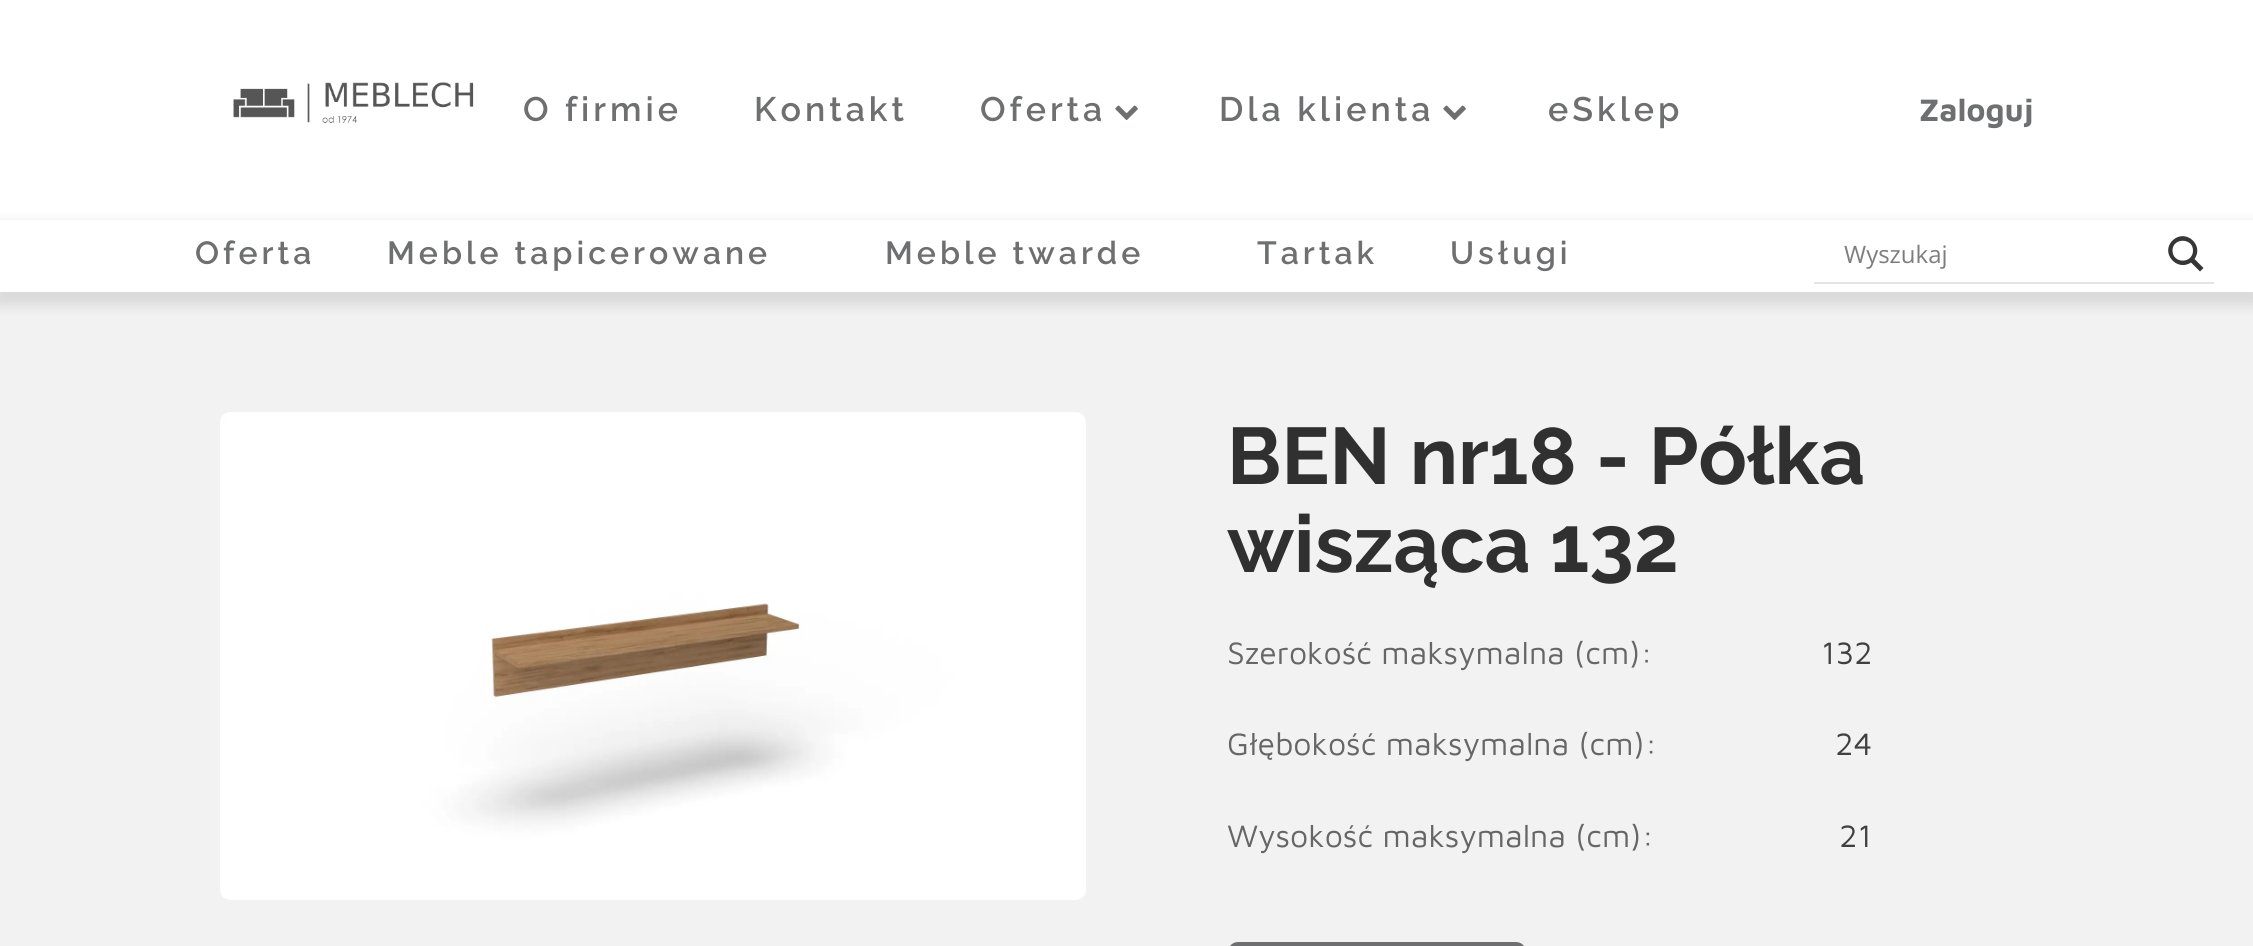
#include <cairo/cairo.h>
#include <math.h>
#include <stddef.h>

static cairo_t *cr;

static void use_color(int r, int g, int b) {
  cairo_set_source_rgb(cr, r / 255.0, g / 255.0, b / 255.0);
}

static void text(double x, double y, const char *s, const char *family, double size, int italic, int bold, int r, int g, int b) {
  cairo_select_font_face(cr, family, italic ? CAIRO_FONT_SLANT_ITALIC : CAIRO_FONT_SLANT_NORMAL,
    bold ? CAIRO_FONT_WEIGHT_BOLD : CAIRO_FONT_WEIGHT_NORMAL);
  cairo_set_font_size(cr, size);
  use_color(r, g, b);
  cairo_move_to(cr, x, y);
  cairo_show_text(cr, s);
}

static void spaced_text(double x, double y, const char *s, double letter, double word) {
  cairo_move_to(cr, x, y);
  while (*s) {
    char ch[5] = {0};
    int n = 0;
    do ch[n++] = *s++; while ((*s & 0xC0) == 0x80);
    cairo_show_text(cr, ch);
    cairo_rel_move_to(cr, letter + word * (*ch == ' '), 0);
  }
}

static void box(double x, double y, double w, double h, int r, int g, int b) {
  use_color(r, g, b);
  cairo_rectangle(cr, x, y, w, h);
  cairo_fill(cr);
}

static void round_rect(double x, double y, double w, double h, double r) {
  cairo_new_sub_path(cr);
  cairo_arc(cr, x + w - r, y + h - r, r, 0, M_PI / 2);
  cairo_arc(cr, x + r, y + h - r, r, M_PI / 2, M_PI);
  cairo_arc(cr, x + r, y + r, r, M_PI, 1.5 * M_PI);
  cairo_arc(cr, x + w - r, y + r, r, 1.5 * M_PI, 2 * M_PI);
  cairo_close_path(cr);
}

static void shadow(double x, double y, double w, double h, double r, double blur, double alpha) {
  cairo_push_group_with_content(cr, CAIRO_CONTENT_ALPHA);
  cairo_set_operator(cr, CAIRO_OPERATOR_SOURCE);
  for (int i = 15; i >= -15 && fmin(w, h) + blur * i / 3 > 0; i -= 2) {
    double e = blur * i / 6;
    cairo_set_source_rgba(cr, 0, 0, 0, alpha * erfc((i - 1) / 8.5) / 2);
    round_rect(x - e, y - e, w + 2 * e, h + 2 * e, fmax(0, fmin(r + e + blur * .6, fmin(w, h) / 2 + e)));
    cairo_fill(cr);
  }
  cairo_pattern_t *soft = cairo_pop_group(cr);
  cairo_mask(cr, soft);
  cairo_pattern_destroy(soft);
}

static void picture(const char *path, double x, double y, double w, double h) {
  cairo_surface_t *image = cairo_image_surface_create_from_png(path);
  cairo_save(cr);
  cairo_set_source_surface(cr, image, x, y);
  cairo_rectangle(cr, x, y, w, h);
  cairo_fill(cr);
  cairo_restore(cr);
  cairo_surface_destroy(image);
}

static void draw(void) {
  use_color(255, 255, 255);
  cairo_paint(cr);
  picture("img_01.png", 233, 82, 241, 41);
  picture("img_02.png", 1115, 105, 23, 15);
  picture("img_02.png", 1443, 105, 23, 15);
  box(0, 292, 2253, 654, 242, 242, 242);
  cairo_save(cr);
  cairo_set_fill_rule(cr, CAIRO_FILL_RULE_EVEN_ODD);
  cairo_new_path(cr);
  cairo_move_to(cr, 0, 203);
  cairo_line_to(cr, 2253, 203);
  cairo_line_to(cr, 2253, 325);
  cairo_line_to(cr, 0, 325);
  cairo_close_path(cr);
  cairo_move_to(cr, 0, 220);
  cairo_line_to(cr, 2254, 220);
  cairo_line_to(cr, 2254, 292);
  cairo_line_to(cr, 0, 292);
  cairo_close_path(cr);
  cairo_clip(cr);
  use_color(0, 0, 0);
  shadow(-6, 222, 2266, 84, 0, 6, 0.1);
  cairo_restore(cr);
  box(1814, 282, 400, 2, 228, 228, 228);
  use_color(54, 54, 54);
  cairo_new_path(cr);
  cairo_move_to(cr, 2203.5, 268);
  cairo_line_to(cr, 2194.5, 259);
  cairo_curve_to(cr, 2204.5, 245, 2185.5, 228, 2172.5, 240.5);
  cairo_curve_to(cr, 2160, 253, 2177, 272, 2191, 262.5);
  cairo_line_to(cr, 2200, 271.5);
  cairo_close_path(cr);
  cairo_move_to(cr, 2172.5, 250.5);
  cairo_curve_to(cr, 2172.5, 237.5, 2193, 237.5, 2193, 250.5);
  cairo_curve_to(cr, 2193, 264, 2172.5, 264, 2172.5, 250.5);
  cairo_close_path(cr);
  cairo_fill(cr);
  picture("img_03.png", 220, 412, 866, 488);
  round_rect(1230, 944, 294, 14, 8);
  use_color(110, 111, 112);
  cairo_set_line_width(cr, 4);
  cairo_stroke(cr);
  cairo_select_font_face(cr, "Raleway SemiBold", CAIRO_FONT_SLANT_NORMAL, CAIRO_FONT_WEIGHT_NORMAL);
  cairo_set_font_size(cr, 34);
  spaced_text(523, 121, "O firmie", 4, 0);
  spaced_text(754, 121, "Kontakt", 4, 0);
  spaced_text(980, 121, "Oferta", 4, 0);
  spaced_text(1219, 121, "Dla klienta", 4, 0);
  spaced_text(1548, 121, "eSklep", 4, 0);
  text(1919, 121, "Zaloguj", "Maven Pro", 32, 0, 1, 110, 111, 112);
  cairo_select_font_face(cr, "Raleway SemiBold", CAIRO_FONT_SLANT_NORMAL, CAIRO_FONT_WEIGHT_NORMAL);
  spaced_text(195, 264, "Oferta", 4, 0);
  spaced_text(387, 264, "Meble tapicerowane", 4, 0);
  spaced_text(885, 264, "Meble twarde", 4, 0);
  spaced_text(1257, 264, "Tartak", 4, 0);
  spaced_text(1450, 264, "Usługi", 4, 0);
  text(1844, 263, "Wyszukaj", "Open Sans", 24, 0, 0, 125, 125, 125);
  text(1227, 484, "BEN nr18 - Półka", "Raleway", 80, 0, 1, 48, 48, 48);
  text(1227, 572, "wisząca 132", "Raleway", 80, 0, 1, 48, 48, 48);
  text(1227, 664, "Szerokość maksymalna (cm):", "Maven Pro", 32, 0, 0, 102, 102, 102);
  text(1821, 664, "132", "Maven Pro", 32, 0, 0, 64, 64, 64);
  text(1227, 755, "Głębokość maksymalna (cm):", "Maven Pro", 32, 0, 0, 102, 102, 102);
  text(1835, 755, "24", "Maven Pro", 32, 0, 0, 64, 64, 64);
  text(1227, 847, "Wysokość maksymalna (cm):", "Maven Pro", 32, 0, 0, 102, 102, 102);
  text(1839, 847, "21", "Maven Pro", 32, 0, 0, 64, 64, 64);
}

int main(void) {
  cairo_surface_t *surface = cairo_image_surface_create(CAIRO_FORMAT_RGB24, 2253, 946);
  cr = cairo_create(surface);
  cairo_font_options_t *options = cairo_font_options_create();
  cairo_font_options_set_hint_metrics(options, CAIRO_HINT_METRICS_OFF);
  cairo_font_options_set_hint_style(options, CAIRO_HINT_STYLE_NONE);
  cairo_set_font_options(cr, options);
  cairo_set_miter_limit(cr, 4);
  draw();
  cairo_surface_write_to_png(surface, "out.png");
  cairo_font_options_destroy(options);
  cairo_destroy(cr);
  cairo_surface_destroy(surface);
  return 0;
}
